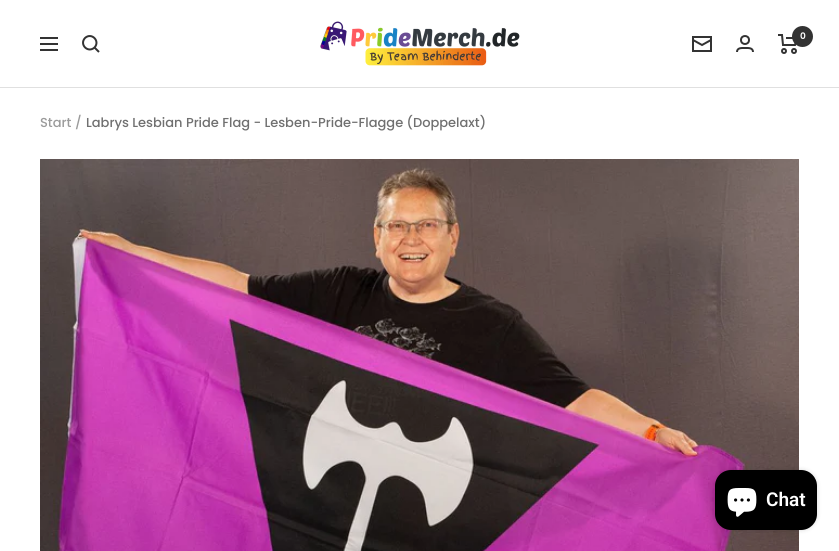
#include <cairo/cairo.h>
#include <math.h>
#include <stddef.h>

static cairo_t *cr;

static void use_color(int r, int g, int b) {
  cairo_set_source_rgb(cr, r / 255.0, g / 255.0, b / 255.0);
}

static void text(double x, double y, const char *s, const char *family, double size, int italic, int bold, int r, int g, int b) {
  cairo_select_font_face(cr, family, italic ? CAIRO_FONT_SLANT_ITALIC : CAIRO_FONT_SLANT_NORMAL,
    bold ? CAIRO_FONT_WEIGHT_BOLD : CAIRO_FONT_WEIGHT_NORMAL);
  cairo_set_font_size(cr, size);
  use_color(r, g, b);
  cairo_move_to(cr, x, y);
  cairo_show_text(cr, s);
}

static void box(double x, double y, double w, double h, int r, int g, int b) {
  use_color(r, g, b);
  cairo_rectangle(cr, x, y, w, h);
  cairo_fill(cr);
}

static void round_rect(double x, double y, double w, double h, double r) {
  cairo_new_sub_path(cr);
  cairo_arc(cr, x + w - r, y + h - r, r, 0, M_PI / 2);
  cairo_arc(cr, x + r, y + h - r, r, M_PI / 2, M_PI);
  cairo_arc(cr, x + r, y + r, r, M_PI, 1.5 * M_PI);
  cairo_arc(cr, x + w - r, y + r, r, 1.5 * M_PI, 2 * M_PI);
  cairo_close_path(cr);
}

static void shadow(double x, double y, double w, double h, double r, double blur, double alpha) {
  cairo_push_group_with_content(cr, CAIRO_CONTENT_ALPHA);
  cairo_set_operator(cr, CAIRO_OPERATOR_SOURCE);
  for (int i = 15; i >= -15 && fmin(w, h) + blur * i / 3 > 0; i -= 2) {
    double e = blur * i / 6;
    cairo_set_source_rgba(cr, 0, 0, 0, alpha * erfc((i - 1) / 8.5) / 2);
    round_rect(x - e, y - e, w + 2 * e, h + 2 * e, fmax(0, fmin(r + e + blur * .6, fmin(w, h) / 2 + e)));
    cairo_fill(cr);
  }
  cairo_pattern_t *soft = cairo_pop_group(cr);
  cairo_mask(cr, soft);
  cairo_pattern_destroy(soft);
}

static void picture(const char *path, double x, double y, double w, double h) {
  cairo_surface_t *image = cairo_image_surface_create_from_png(path);
  cairo_save(cr);
  cairo_set_source_surface(cr, image, x, y);
  cairo_rectangle(cr, x, y, w, h);
  cairo_fill(cr);
  cairo_restore(cr);
  cairo_surface_destroy(image);
}

static void draw(void) {
  use_color(255, 255, 255);
  cairo_paint(cr);
  box(0, 87, 839, 1, 224, 224, 224);
  cairo_new_path(cr);
  cairo_move_to(cr, 40, 38);
  cairo_line_to(cr, 58, 38);
  cairo_move_to(cr, 40, 50);
  cairo_line_to(cr, 58, 50);
  cairo_close_path(cr);
  cairo_move_to(cr, 40, 44);
  cairo_line_to(cr, 58, 44);
  cairo_close_path(cr);
  cairo_move_to(cr, 94.5, 47.5);
  cairo_curve_to(cr, 100.5, 41, 91.5, 32, 85, 38);
  cairo_curve_to(cr, 79, 44.5, 88, 53.5, 94.5, 47.5);
  cairo_close_path(cr);
  cairo_move_to(cr, 94.5, 47.5);
  cairo_line_to(cr, 99, 52);
  use_color(51, 51, 51);
  cairo_stroke(cr);
  picture("img_01.png", 320, 21, 200, 45);
  cairo_new_path(cr);
  cairo_move_to(cr, 711, 40);
  cairo_line_to(cr, 702, 45);
  cairo_line_to(cr, 693, 40);
  cairo_move_to(cr, 693, 37);
  cairo_line_to(cr, 711, 37);
  cairo_line_to(cr, 711, 51);
  cairo_line_to(cr, 693, 51);
  cairo_close_path(cr);
  cairo_stroke(cr);
  cairo_arc(cr, 745, 40, 4, 0, 2 * M_PI);
  cairo_stroke(cr);
  cairo_new_path(cr);
  cairo_move_to(cr, 737, 52);
  cairo_curve_to(cr, 737, 47.5, 742, 48, 745, 48);
  cairo_curve_to(cr, 748, 48, 753, 47.5, 753, 52);
  cairo_move_to(cr, 778, 35);
  cairo_line_to(cr, 782, 35);
  cairo_line_to(cr, 783, 45);
  cairo_line_to(cr, 795, 45);
  cairo_line_to(cr, 797, 38);
  cairo_line_to(cr, 786, 38);
  cairo_stroke(cr);
  cairo_arc(cr, 802.5, 36.5, 10.5, 0, 2 * M_PI);
  cairo_fill(cr);
  cairo_arc(cr, 784, 51, 2, 0, 2 * M_PI);
  cairo_stroke(cr);
  cairo_arc(cr, 794, 51, 2, 0, 2 * M_PI);
  cairo_stroke(cr);
  picture("img_02.png", 40, 159, 759, 392);
  use_color(0, 0, 0);
  shadow(715, 470, 102, 60, 16, 2.5, 0.15);
  use_color(0, 0, 0);
  round_rect(715, 470, 102, 60, 16);
  cairo_fill(cr);
  picture("img_03.png", 727, 488, 30, 29);
  text(800, 39, "0", "Poppins SemiBold", 9, 0, 0, 255, 255, 255);
  text(40, 127, "Start", "Poppins Medium", 13, 0, 0, 155, 155, 155);
  text(75, 127, "/", "Poppins Medium", 13, 0, 0, 155, 155, 155);
  text(86, 127, "Labrys Lesbian Pride Flag - Lesben-Pride-Flagge (Doppelaxt)", "Poppins Medium", 13, 0, 0, 112, 112, 112);
  text(766, 506, "Chat", "Roboto SemiBold", 19, 0, 0, 255, 255, 255);
}

int main(void) {
  cairo_surface_t *surface = cairo_image_surface_create(CAIRO_FORMAT_RGB24, 839, 551);
  cr = cairo_create(surface);
  cairo_font_options_t *options = cairo_font_options_create();
  cairo_font_options_set_hint_metrics(options, CAIRO_HINT_METRICS_OFF);
  cairo_font_options_set_hint_style(options, CAIRO_HINT_STYLE_NONE);
  cairo_set_font_options(cr, options);
  cairo_set_miter_limit(cr, 4);
  draw();
  cairo_surface_write_to_png(surface, "out.png");
  cairo_font_options_destroy(options);
  cairo_destroy(cr);
  cairo_surface_destroy(surface);
  return 0;
}
